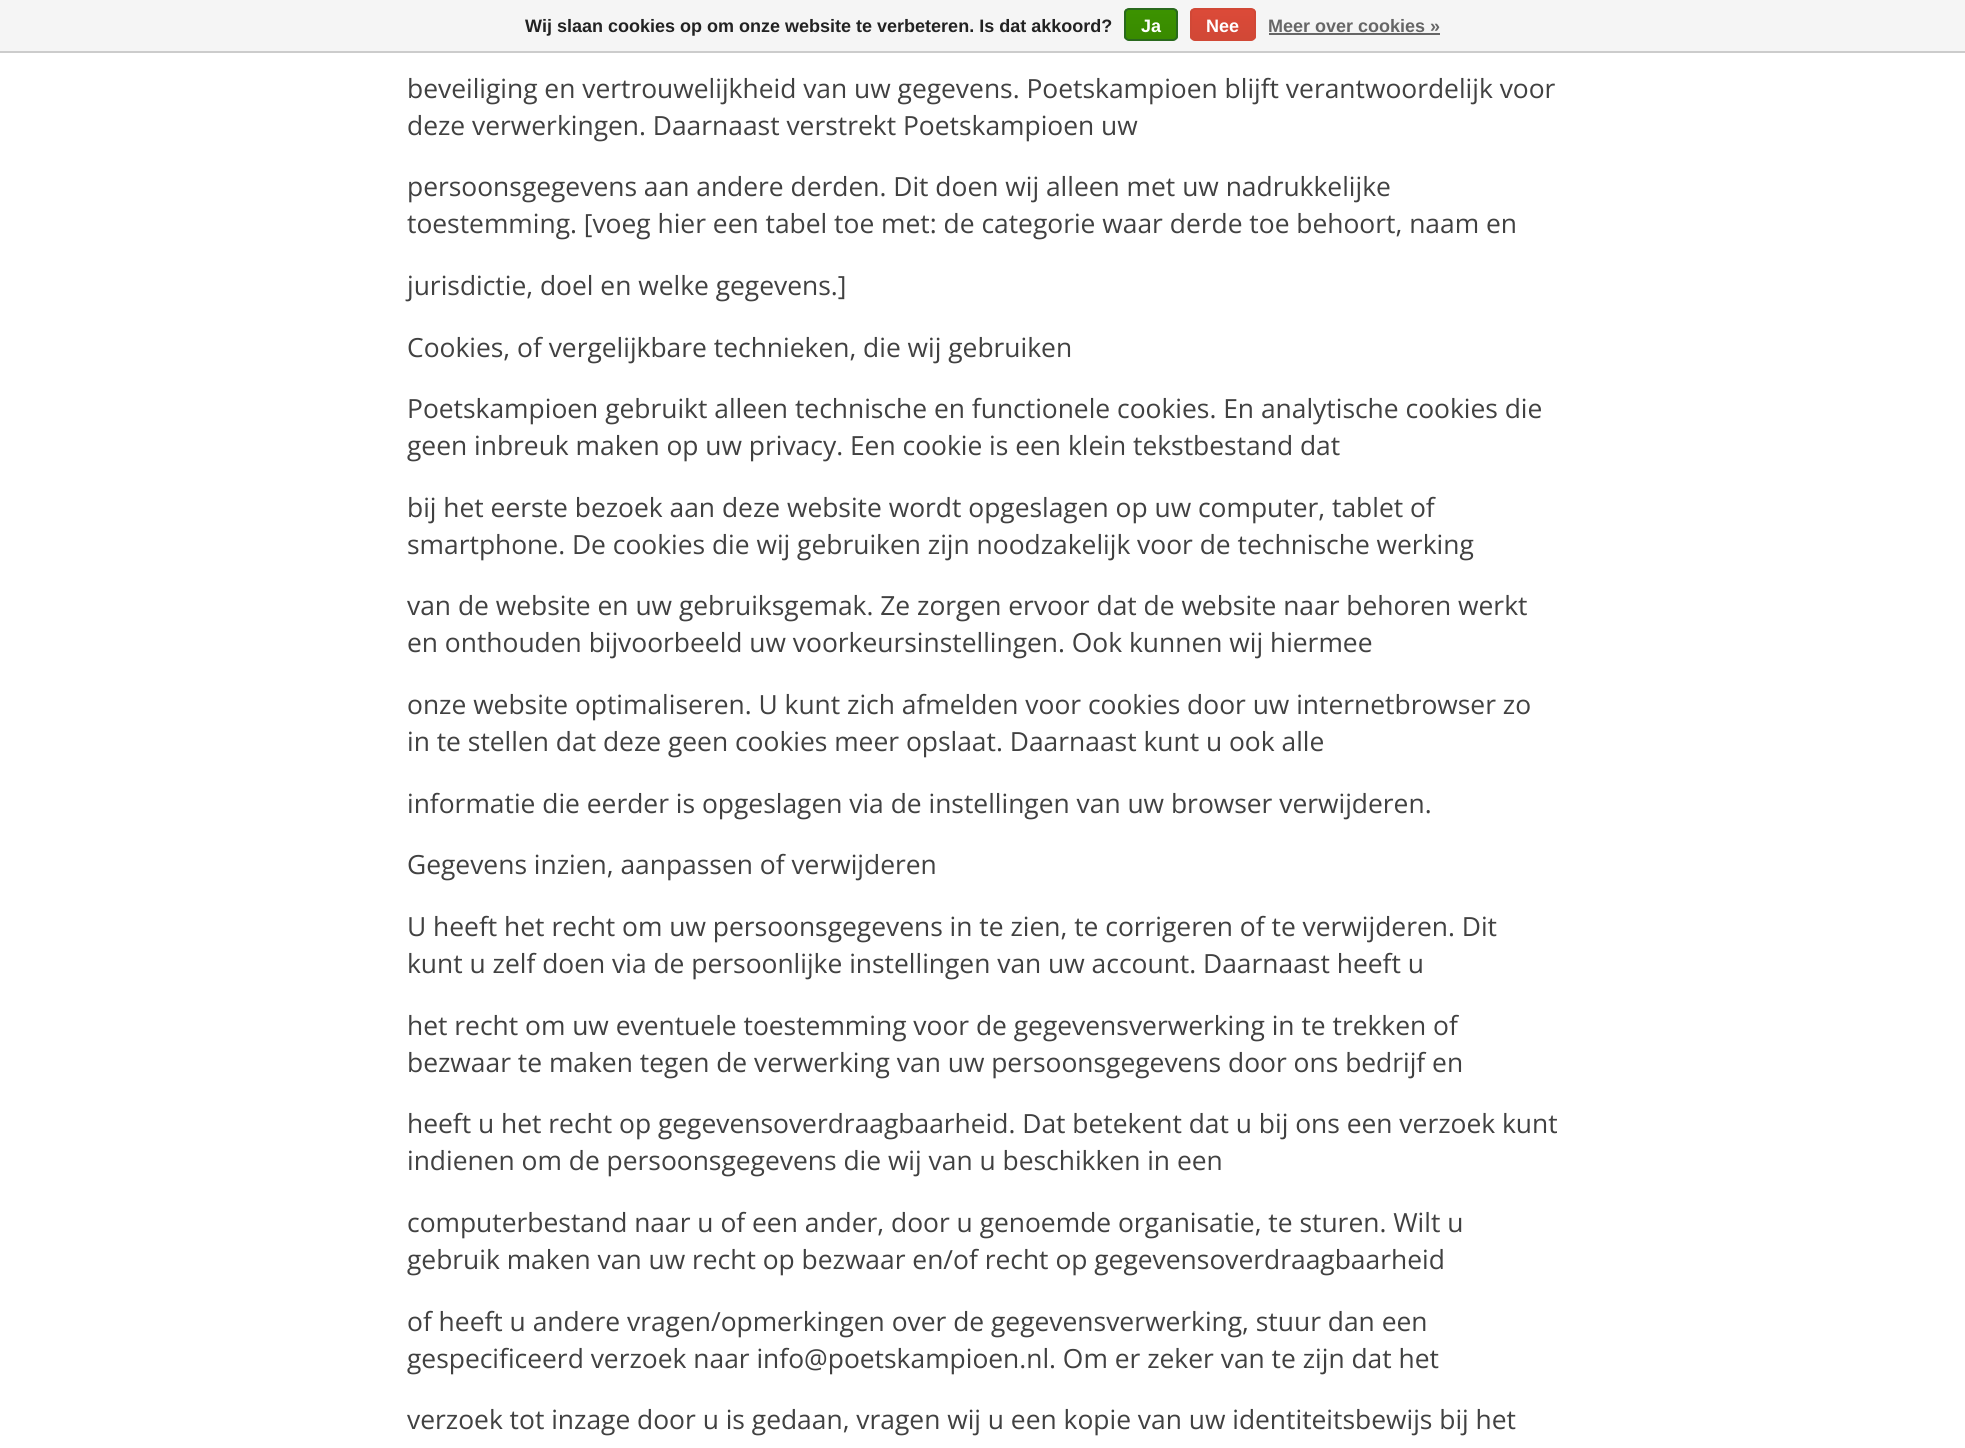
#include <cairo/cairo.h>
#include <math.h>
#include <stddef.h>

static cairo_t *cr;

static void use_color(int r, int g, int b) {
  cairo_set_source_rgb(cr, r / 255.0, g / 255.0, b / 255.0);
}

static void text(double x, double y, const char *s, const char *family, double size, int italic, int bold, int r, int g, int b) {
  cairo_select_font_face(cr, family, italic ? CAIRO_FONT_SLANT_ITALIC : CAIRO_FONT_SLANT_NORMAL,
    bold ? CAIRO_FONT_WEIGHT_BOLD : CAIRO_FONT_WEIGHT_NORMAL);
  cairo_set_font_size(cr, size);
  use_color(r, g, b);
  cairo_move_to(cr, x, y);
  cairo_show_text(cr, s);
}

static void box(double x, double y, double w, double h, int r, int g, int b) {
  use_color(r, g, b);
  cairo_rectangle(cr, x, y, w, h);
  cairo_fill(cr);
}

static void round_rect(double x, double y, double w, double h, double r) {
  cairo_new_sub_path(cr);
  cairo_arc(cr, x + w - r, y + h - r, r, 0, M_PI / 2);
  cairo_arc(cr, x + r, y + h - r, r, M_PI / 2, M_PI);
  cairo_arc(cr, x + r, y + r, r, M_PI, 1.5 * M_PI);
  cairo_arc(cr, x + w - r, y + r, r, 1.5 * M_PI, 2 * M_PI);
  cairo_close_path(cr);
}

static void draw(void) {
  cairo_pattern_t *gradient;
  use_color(255, 255, 255);
  cairo_paint(cr);
  box(0, 0, 1965, 51, 245, 245, 245);
  box(0, 51, 1965, 2, 204, 204, 204);
  cairo_save(cr);
  round_rect(1124, 8, 54, 33, 5);
  cairo_clip(cr);
  gradient = cairo_pattern_create_linear(1151, 9, 1151, 39);
  cairo_pattern_add_color_stop_rgba(gradient, 0, 0.235, 0.576, 0, 1);
  cairo_pattern_add_color_stop_rgba(gradient, 1, 0.224, 0.541, 0, 1);
  cairo_set_source(cr, gradient);
  cairo_pattern_destroy(gradient);
  cairo_rectangle(cr, 1124, 9, 54, 30);
  cairo_fill(cr);
  cairo_restore(cr);
  round_rect(1125, 9, 52, 31, 4);
  use_color(41, 105, 29);
  cairo_stroke(cr);
  cairo_save(cr);
  round_rect(1190, 8, 66, 33, 5);
  cairo_clip(cr);
  gradient = cairo_pattern_create_linear(1223, 9, 1223, 39);
  cairo_pattern_add_color_stop_rgba(gradient, 0, 0.863, 0.29, 0.22, 1);
  cairo_pattern_add_color_stop_rgba(gradient, 1, 0.82, 0.282, 0.212, 1);
  cairo_set_source(cr, gradient);
  cairo_pattern_destroy(gradient);
  cairo_rectangle(cr, 1190, 9, 66, 30);
  cairo_fill(cr);
  cairo_restore(cr);
  round_rect(1191, 9, 64, 31, 4);
  use_color(209, 72, 54);
  cairo_stroke(cr);
  box(1269, 33, 171, 2, 102, 102, 102);
  text(525, 32, "Wij slaan cookies op om onze website te verbeteren. Is dat akkoord?", "Liberation Sans", 18, 0, 1, 34, 34, 34);
  text(1141, 32, "Ja", "Liberation Sans", 18, 0, 1, 255, 255, 255);
  text(1206, 32, "Nee", "Liberation Sans", 18, 0, 1, 255, 255, 255);
  text(1268, 32, "Meer over cookies »", "Liberation Sans", 18, 0, 1, 102, 102, 102);
  text(407, 98, "beveiliging en vertrouwelijkheid van uw gegevens. Poetskampioen blijft verantwoordelijk voor", "Open Sans", 26.4, 0, 0, 65, 65, 65);
  text(407, 135, "deze verwerkingen. Daarnaast verstrekt Poetskampioen uw", "Open Sans", 26.4, 0, 0, 65, 65, 65);
  text(407, 196, "persoonsgegevens aan andere derden. Dit doen wij alleen met uw nadrukkelijke", "Open Sans", 26.4, 0, 0, 65, 65, 65);
  text(407, 233, "toestemming. [voeg hier een tabel toe met: de categorie waar derde toe behoort, naam en", "Open Sans", 26.4, 0, 0, 65, 65, 65);
  text(407, 295, "jurisdictie, doel en welke gegevens.]", "Open Sans", 26.4, 0, 0, 65, 65, 65);
  text(407, 357, "Cookies, of vergelijkbare technieken, die wij gebruiken", "Open Sans", 26.4, 0, 0, 65, 65, 65);
  text(407, 418, "Poetskampioen gebruikt alleen technische en functionele cookies. En analytische cookies die", "Open Sans", 26.4, 0, 0, 65, 65, 65);
  text(407, 455, "geen inbreuk maken op uw privacy. Een cookie is een klein tekstbestand dat", "Open Sans", 26.4, 0, 0, 65, 65, 65);
  text(407, 517, "bij het eerste bezoek aan deze website wordt opgeslagen op uw computer, tablet of", "Open Sans", 26.4, 0, 0, 65, 65, 65);
  text(407, 554, "smartphone. De cookies die wij gebruiken zijn noodzakelijk voor de technische werking", "Open Sans", 26.4, 0, 0, 65, 65, 65);
  text(407, 615, "van de website en uw gebruiksgemak. Ze zorgen ervoor dat de website naar behoren werkt", "Open Sans", 26.4, 0, 0, 65, 65, 65);
  text(407, 652, "en onthouden bijvoorbeeld uw voorkeursinstellingen. Ook kunnen wij hiermee", "Open Sans", 26.4, 0, 0, 65, 65, 65);
  text(407, 714, "onze website optimaliseren. U kunt zich afmelden voor cookies door uw internetbrowser zo", "Open Sans", 26.4, 0, 0, 65, 65, 65);
  text(407, 751, "in te stellen dat deze geen cookies meer opslaat. Daarnaast kunt u ook alle", "Open Sans", 26.4, 0, 0, 65, 65, 65);
  text(407, 813, "informatie die eerder is opgeslagen via de instellingen van uw browser verwijderen.", "Open Sans", 26.4, 0, 0, 65, 65, 65);
  text(407, 874, "Gegevens inzien, aanpassen of verwijderen", "Open Sans", 26.4, 0, 0, 65, 65, 65);
  text(407, 936, "U heeft het recht om uw persoonsgegevens in te zien, te corrigeren of te verwijderen. Dit", "Open Sans", 26.4, 0, 0, 65, 65, 65);
  text(407, 973, "kunt u zelf doen via de persoonlijke instellingen van uw account. Daarnaast heeft u", "Open Sans", 26.4, 0, 0, 65, 65, 65);
  text(407, 1035, "het recht om uw eventuele toestemming voor de gegevensverwerking in te trekken of", "Open Sans", 26.4, 0, 0, 65, 65, 65);
  text(407, 1072, "bezwaar te maken tegen de verwerking van uw persoonsgegevens door ons bedrijf en", "Open Sans", 26.4, 0, 0, 65, 65, 65);
  text(407, 1133, "heeft u het recht op gegevensoverdraagbaarheid. Dat betekent dat u bij ons een verzoek kunt", "Open Sans", 26.4, 0, 0, 65, 65, 65);
  text(407, 1170, "indienen om de persoonsgegevens die wij van u beschikken in een", "Open Sans", 26.4, 0, 0, 65, 65, 65);
  text(407, 1232, "computerbestand naar u of een ander, door u genoemde organisatie, te sturen. Wilt u", "Open Sans", 26.4, 0, 0, 65, 65, 65);
  text(407, 1269, "gebruik maken van uw recht op bezwaar en/of recht op gegevensoverdraagbaarheid", "Open Sans", 26.4, 0, 0, 65, 65, 65);
  text(407, 1331, "of heeft u andere vragen/opmerkingen over de gegevensverwerking, stuur dan een", "Open Sans", 26.4, 0, 0, 65, 65, 65);
  text(407, 1368, "gespecificeerd verzoek naar info@poetskampioen.nl. Om er zeker van te zijn dat het", "Open Sans", 26.4, 0, 0, 65, 65, 65);
  text(407, 1429, "verzoek tot inzage door u is gedaan, vragen wij u een kopie van uw identiteitsbewijs bij het", "Open Sans", 26.4, 0, 0, 65, 65, 65);
}

int main(void) {
  cairo_surface_t *surface = cairo_image_surface_create(CAIRO_FORMAT_RGB24, 1965, 1448);
  cr = cairo_create(surface);
  cairo_font_options_t *options = cairo_font_options_create();
  cairo_font_options_set_hint_metrics(options, CAIRO_HINT_METRICS_OFF);
  cairo_font_options_set_hint_style(options, CAIRO_HINT_STYLE_NONE);
  cairo_set_font_options(cr, options);
  cairo_set_miter_limit(cr, 4);
  draw();
  cairo_surface_write_to_png(surface, "out.png");
  cairo_font_options_destroy(options);
  cairo_destroy(cr);
  cairo_surface_destroy(surface);
  return 0;
}
